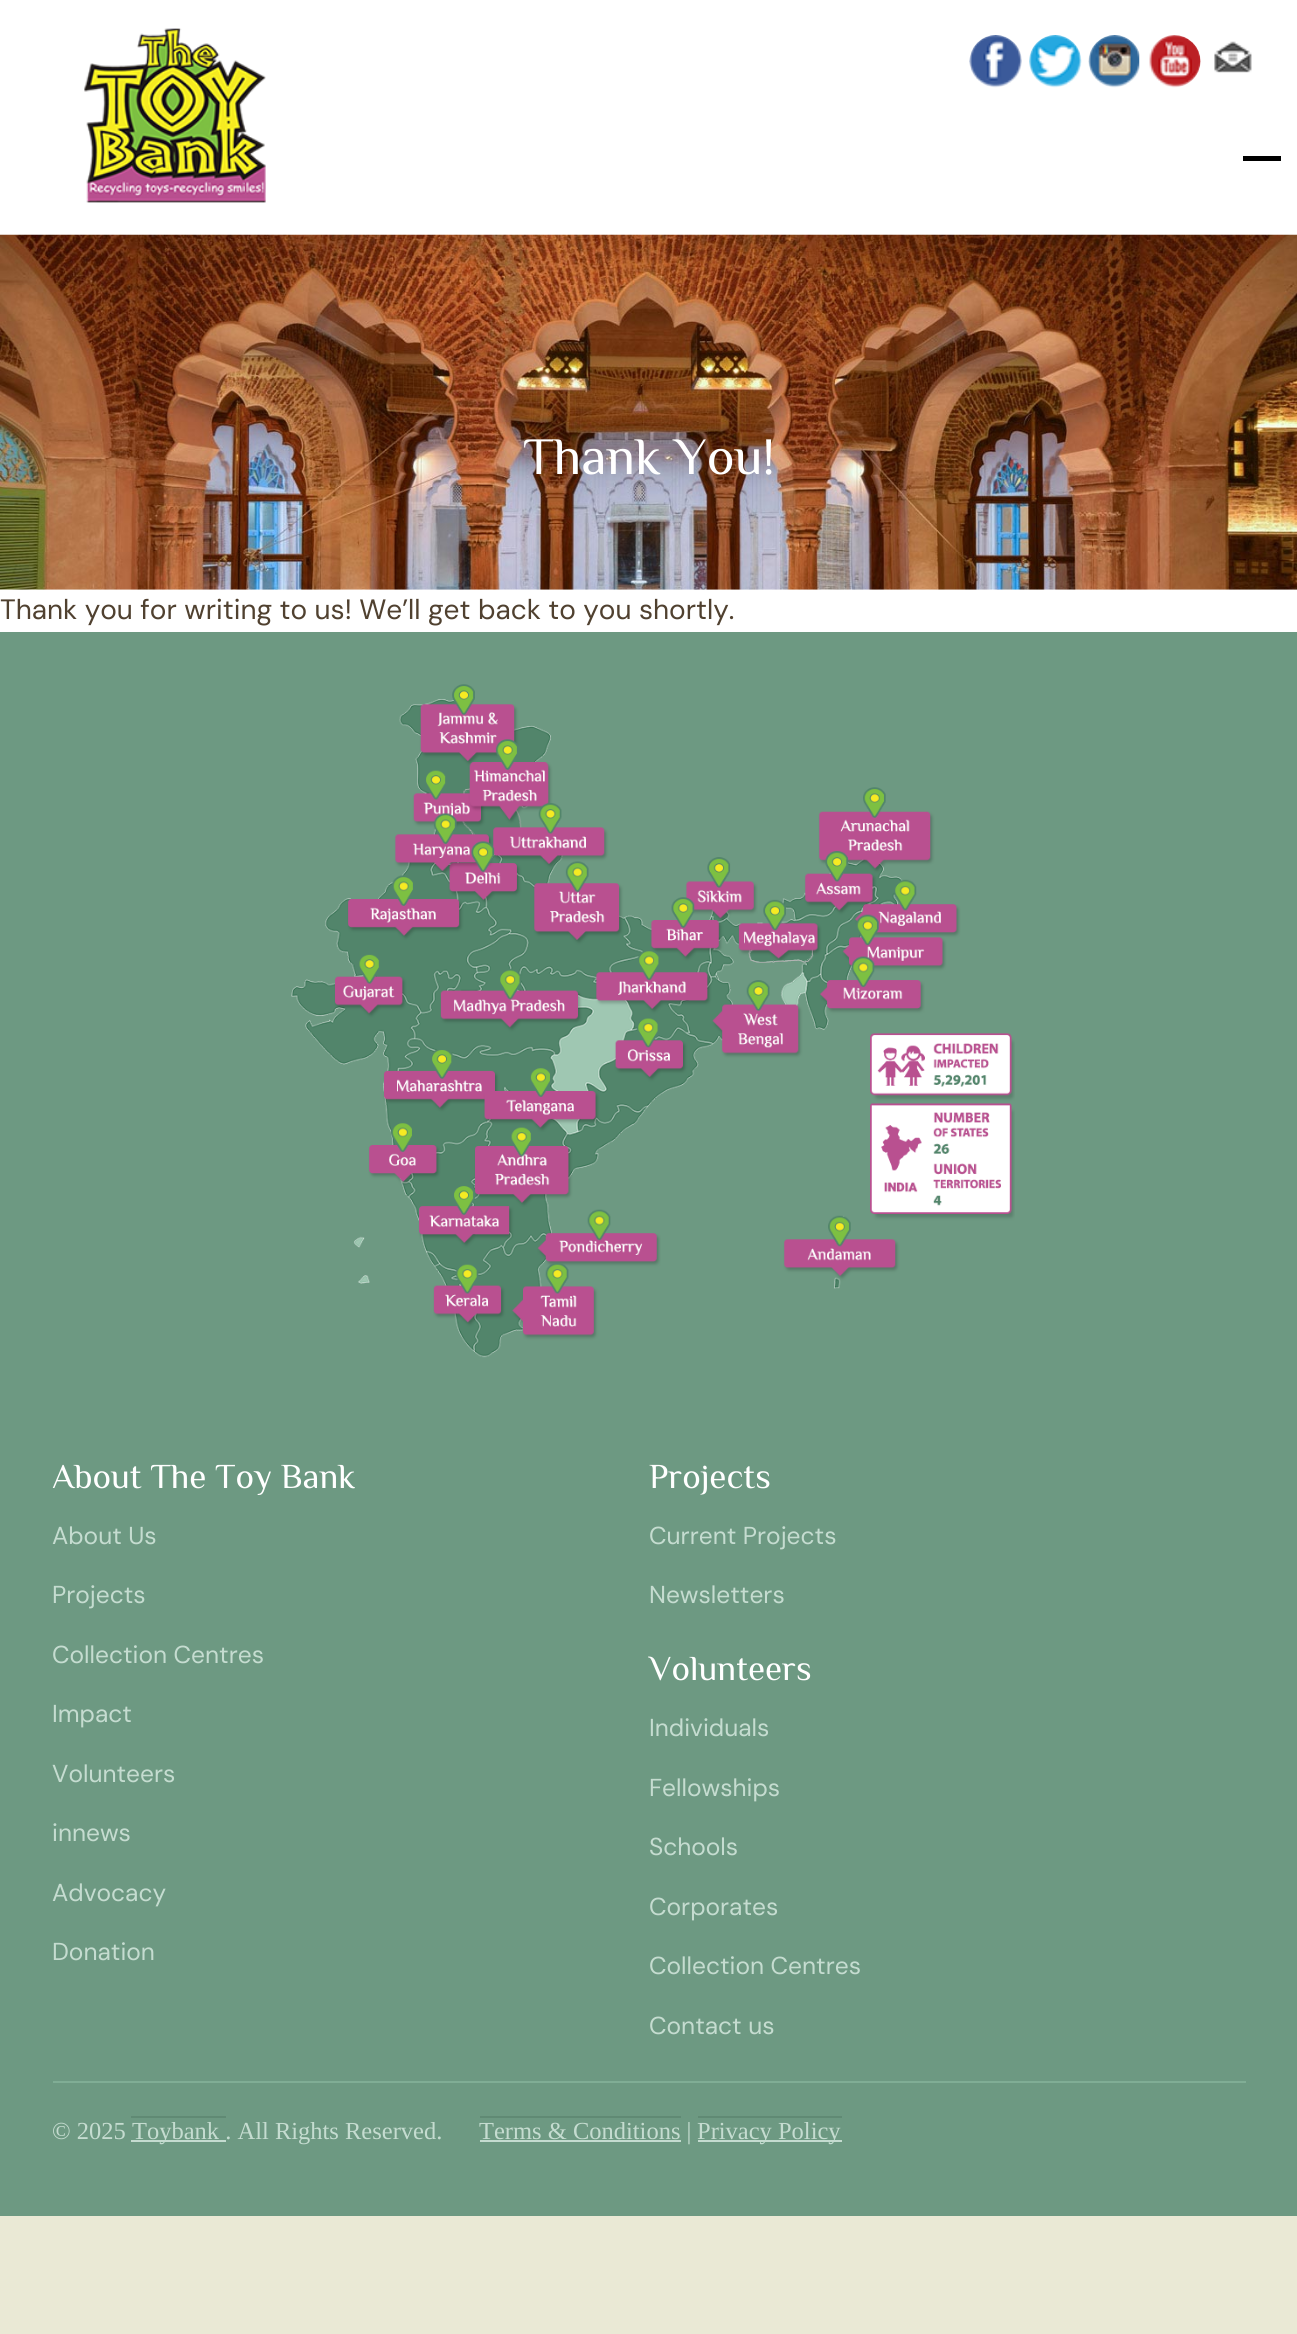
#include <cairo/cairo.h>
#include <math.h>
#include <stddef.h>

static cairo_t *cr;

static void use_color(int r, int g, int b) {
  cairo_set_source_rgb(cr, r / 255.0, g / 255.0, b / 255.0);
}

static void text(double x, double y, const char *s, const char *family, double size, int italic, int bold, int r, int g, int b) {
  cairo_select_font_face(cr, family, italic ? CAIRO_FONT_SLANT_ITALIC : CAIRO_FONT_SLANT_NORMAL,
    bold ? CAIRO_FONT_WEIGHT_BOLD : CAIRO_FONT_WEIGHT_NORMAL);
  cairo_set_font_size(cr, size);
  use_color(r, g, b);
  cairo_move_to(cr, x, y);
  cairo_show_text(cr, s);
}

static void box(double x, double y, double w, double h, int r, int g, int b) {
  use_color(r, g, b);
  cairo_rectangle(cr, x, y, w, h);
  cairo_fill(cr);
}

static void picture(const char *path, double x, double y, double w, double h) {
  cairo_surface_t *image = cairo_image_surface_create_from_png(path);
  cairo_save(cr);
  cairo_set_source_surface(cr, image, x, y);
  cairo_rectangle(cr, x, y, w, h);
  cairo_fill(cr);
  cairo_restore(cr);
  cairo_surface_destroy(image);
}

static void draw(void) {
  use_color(234, 233, 213);
  cairo_paint(cr);
  box(0, 0, 1297, 632, 255, 255, 255);
  box(1243, 156, 38, 5, 0, 0, 0);
  picture("img_01.png", 84, 28, 182, 175);
  picture("img_02.png", 969, 35, 53, 53);
  picture("img_03.png", 1029, 35, 53, 53);
  picture("img_04.png", 1088, 35, 52, 53);
  picture("img_05.png", 1149, 35, 52, 53);
  picture("img_06.png", 1214, 41, 38, 32);
  picture("img_07.png", 0, 234, 1297, 356);
  box(0, 632, 1297, 1584, 109, 153, 130);
  picture("img_08.png", 291, 684, 724, 674);
  box(53, 2081, 1193, 2, 128, 173, 149);
  box(131, 2116, 95, 2, 96, 138, 116);
  box(131, 2140, 95, 2, 197, 220, 208);
  box(480, 2116, 201, 2, 96, 138, 116);
  box(480, 2140, 201, 2, 197, 220, 208);
  box(698, 2116, 144, 2, 96, 138, 116);
  box(698, 2140, 144, 2, 197, 220, 208);
  text(523, 474, "Thank You!", "Philosopher", 52.5, 0, 0, 255, 255, 255);
  text(0, 619, "Thank you for writing to us! We’ll get back to you shortly.", "DM Sans", 28, 0, 0, 80, 65, 48);
  text(52, 1488, "About The Toy Bank", "Philosopher", 35, 0, 0, 255, 255, 255);
  text(52, 1544, "About Us", "DM Sans", 24.5, 0, 0, 197, 220, 208);
  text(52, 1603, "Projects", "DM Sans", 24.5, 0, 0, 197, 220, 208);
  text(52, 1663, "Collection Centres", "DM Sans", 24.5, 0, 0, 197, 220, 208);
  text(52, 1722, "Impact", "DM Sans", 24.5, 0, 0, 197, 220, 208);
  text(52, 1782, "Volunteers", "DM Sans", 24.5, 0, 0, 197, 220, 208);
  text(52, 1841, "innews", "DM Sans", 24.5, 0, 0, 197, 220, 208);
  text(52, 1901, "Advocacy", "DM Sans", 24.5, 0, 0, 197, 220, 208);
  text(52, 1960, "Donation", "DM Sans", 24.5, 0, 0, 197, 220, 208);
  text(649, 1488, "Projects", "Philosopher", 35, 0, 0, 255, 255, 255);
  text(649, 1544, "Current Projects", "DM Sans", 24.5, 0, 0, 197, 220, 208);
  text(649, 1603, "Newsletters", "DM Sans", 24.5, 0, 0, 197, 220, 208);
  text(649, 1680, "Volunteers", "Philosopher", 35, 0, 0, 255, 255, 255);
  text(649, 1736, "Individuals", "DM Sans", 24.5, 0, 0, 197, 220, 208);
  text(649, 1796, "Fellowships", "DM Sans", 24.5, 0, 0, 197, 220, 208);
  text(649, 1855, "Schools", "DM Sans", 24.5, 0, 0, 197, 220, 208);
  text(649, 1915, "Corporates", "DM Sans", 24.5, 0, 0, 197, 220, 208);
  text(649, 1974, "Collection Centres", "DM Sans", 24.5, 0, 0, 197, 220, 208);
  text(649, 2034, "Contact us", "DM Sans", 24.5, 0, 0, 197, 220, 208);
  text(52, 2139, "© 2025", "Liberation Serif", 24.5, 0, 0, 197, 220, 208);
  text(132, 2139, "Toybank . All Rights Reserved.", "Liberation Serif", 24.5, 0, 0, 197, 220, 208);
  text(479, 2139, "Terms & Conditions |", "Liberation Serif", 24.5, 0, 0, 197, 220, 208);
  text(697, 2139, "Privacy Policy", "Liberation Serif", 24.5, 0, 0, 197, 220, 208);
}

int main(void) {
  cairo_surface_t *surface = cairo_image_surface_create(CAIRO_FORMAT_RGB24, 1297, 2334);
  cr = cairo_create(surface);
  cairo_font_options_t *options = cairo_font_options_create();
  cairo_font_options_set_hint_metrics(options, CAIRO_HINT_METRICS_OFF);
  cairo_font_options_set_hint_style(options, CAIRO_HINT_STYLE_NONE);
  cairo_set_font_options(cr, options);
  cairo_set_miter_limit(cr, 4);
  draw();
  cairo_surface_write_to_png(surface, "out.png");
  cairo_font_options_destroy(options);
  cairo_destroy(cr);
  cairo_surface_destroy(surface);
  return 0;
}
